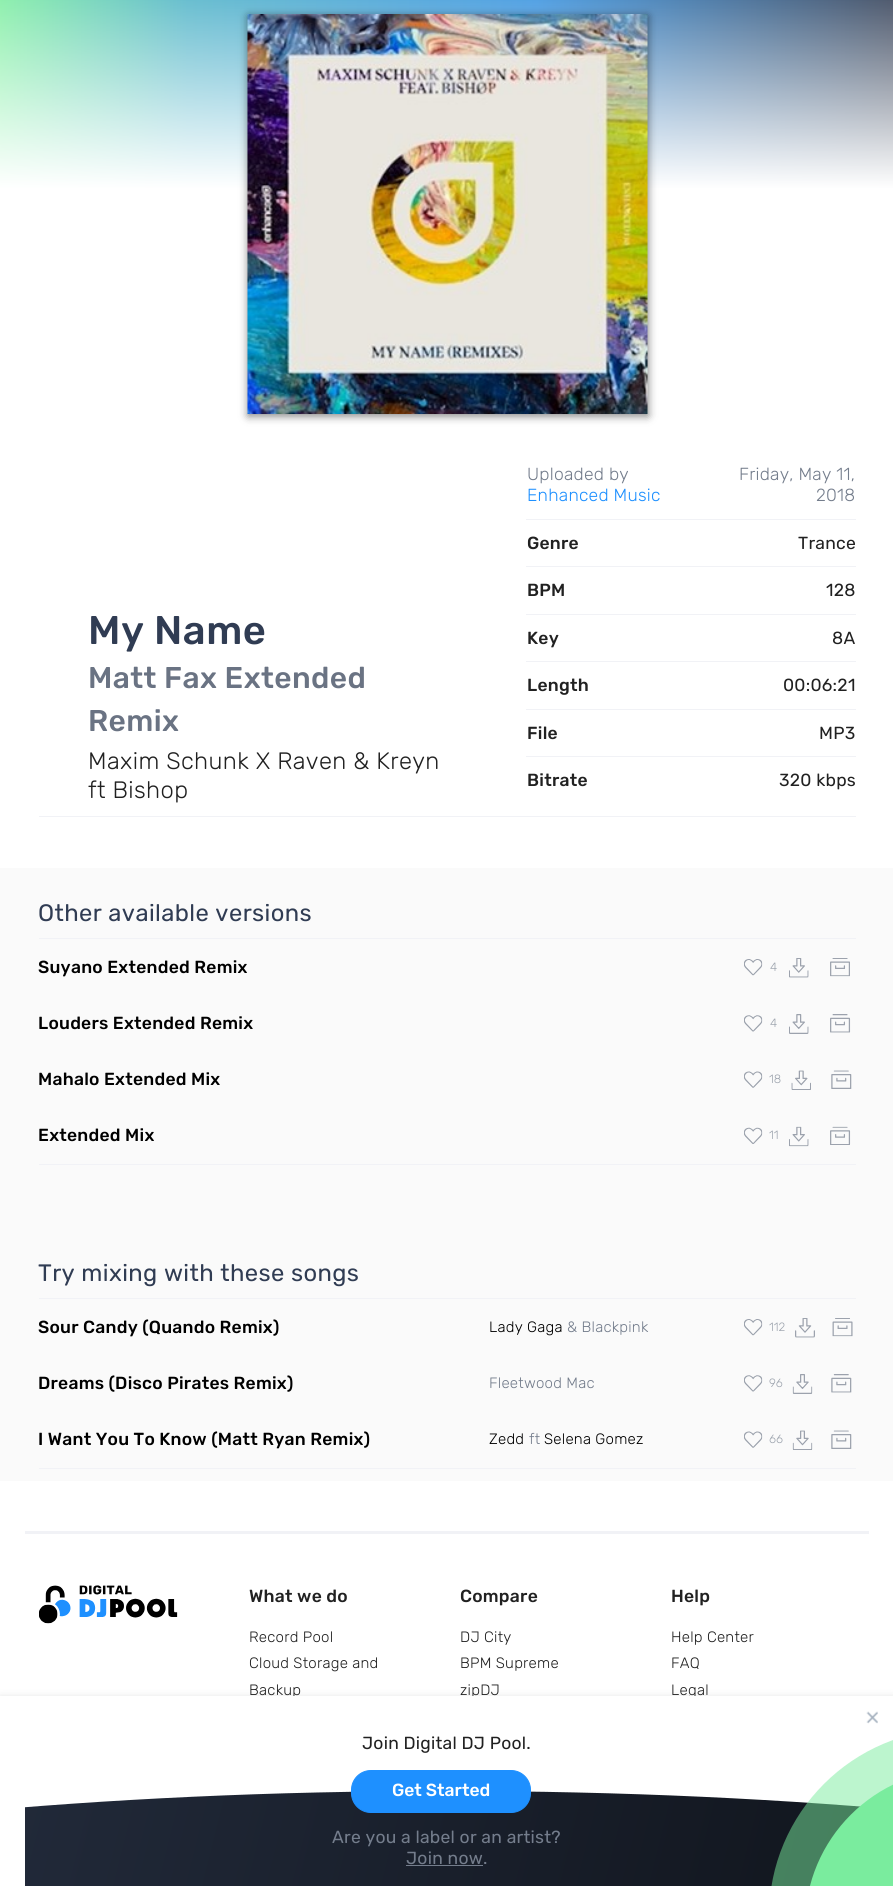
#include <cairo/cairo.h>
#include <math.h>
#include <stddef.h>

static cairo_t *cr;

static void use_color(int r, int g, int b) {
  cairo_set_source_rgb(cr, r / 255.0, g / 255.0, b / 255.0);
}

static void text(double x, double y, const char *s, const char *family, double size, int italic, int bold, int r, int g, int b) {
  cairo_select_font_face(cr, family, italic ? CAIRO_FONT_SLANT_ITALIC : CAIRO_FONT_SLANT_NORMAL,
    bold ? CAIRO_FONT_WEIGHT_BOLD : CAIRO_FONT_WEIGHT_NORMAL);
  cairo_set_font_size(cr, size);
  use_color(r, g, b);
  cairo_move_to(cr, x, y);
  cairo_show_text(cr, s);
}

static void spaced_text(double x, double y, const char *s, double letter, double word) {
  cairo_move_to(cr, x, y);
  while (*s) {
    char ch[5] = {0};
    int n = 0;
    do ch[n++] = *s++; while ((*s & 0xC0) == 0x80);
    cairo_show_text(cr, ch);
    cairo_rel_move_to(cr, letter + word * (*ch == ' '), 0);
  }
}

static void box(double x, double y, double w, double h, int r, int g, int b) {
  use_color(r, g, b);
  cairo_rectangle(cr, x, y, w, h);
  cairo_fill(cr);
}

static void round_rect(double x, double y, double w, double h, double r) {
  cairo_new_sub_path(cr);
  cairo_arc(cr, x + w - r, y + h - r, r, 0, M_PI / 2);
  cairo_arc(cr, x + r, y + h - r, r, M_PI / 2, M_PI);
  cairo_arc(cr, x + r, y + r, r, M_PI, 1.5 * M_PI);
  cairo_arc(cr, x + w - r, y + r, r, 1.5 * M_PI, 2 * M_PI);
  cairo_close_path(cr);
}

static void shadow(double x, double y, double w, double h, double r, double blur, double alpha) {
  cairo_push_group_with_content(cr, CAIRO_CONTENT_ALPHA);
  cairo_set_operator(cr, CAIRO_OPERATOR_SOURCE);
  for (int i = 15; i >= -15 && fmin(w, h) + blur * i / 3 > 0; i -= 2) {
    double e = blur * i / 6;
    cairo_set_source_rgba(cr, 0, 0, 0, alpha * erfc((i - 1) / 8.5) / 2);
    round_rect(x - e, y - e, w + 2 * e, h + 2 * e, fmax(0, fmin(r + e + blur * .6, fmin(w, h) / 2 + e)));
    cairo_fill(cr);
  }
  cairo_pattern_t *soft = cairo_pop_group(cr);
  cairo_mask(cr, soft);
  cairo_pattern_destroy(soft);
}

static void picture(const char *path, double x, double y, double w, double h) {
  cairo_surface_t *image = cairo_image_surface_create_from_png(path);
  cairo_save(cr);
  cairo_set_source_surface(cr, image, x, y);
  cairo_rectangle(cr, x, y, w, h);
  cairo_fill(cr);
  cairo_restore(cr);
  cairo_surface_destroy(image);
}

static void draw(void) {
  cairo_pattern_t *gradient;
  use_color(255, 255, 255);
  cairo_paint(cr);
  gradient = cairo_pattern_create_linear(0, 76, 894, 76);
  cairo_pattern_add_color_stop_rgba(gradient, 0, 0.482, 0.929, 0.624, 1);
  cairo_pattern_add_color_stop_rgba(gradient, 0.21, 0.306, 0.698, 0.78, 1);
  cairo_pattern_add_color_stop_rgba(gradient, 0.6, 0.204, 0.565, 0.871, 1);
  cairo_pattern_add_color_stop_rgba(gradient, 1, 0.188, 0.235, 0.325, 1);
  cairo_set_source(cr, gradient);
  cairo_pattern_destroy(gradient);
  cairo_rectangle(cr, 0, 0, 893, 188);
  cairo_fill(cr);
  gradient = cairo_pattern_create_linear(447, 189, 447, -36);
  cairo_pattern_add_color_stop_rgba(gradient, 0, 1, 1, 1, 1);
  cairo_pattern_add_color_stop_rgba(gradient, 1, 1, 1, 1, 0);
  cairo_set_source(cr, gradient);
  cairo_pattern_destroy(gradient);
  cairo_rectangle(cr, 0, 0, 893, 188);
  cairo_fill(cr);
  use_color(0, 0, 0);
  shadow(248, 16, 400, 400, 0, 4.5, 0.5);
  picture("img_01.png", 247, 14, 401, 400);
  box(39, 816, 817, 1, 241, 242, 246);
  box(526, 519, 330, 1, 241, 242, 246);
  box(526, 566, 330, 1, 241, 242, 246);
  box(526, 614, 330, 1, 241, 242, 246);
  box(526, 661, 330, 1, 241, 242, 246);
  box(526, 709, 330, 1, 241, 242, 246);
  box(526, 756, 330, 1, 241, 242, 246);
  box(0, 868, 893, 613, 250, 250, 250);
  box(39, 938, 817, 1, 241, 242, 246);
  box(39, 1164, 817, 1, 241, 242, 246);
  picture("img_02.png", 744, 959, 19, 17);
  picture("img_03.png", 789, 958, 20, 20);
  picture("img_04.png", 830, 958, 20, 19);
  picture("img_05.png", 744, 1015, 19, 17);
  picture("img_06.png", 789, 1014, 20, 20);
  picture("img_07.png", 830, 1014, 21, 19);
  picture("img_08.png", 744, 1071, 19, 17);
  picture("img_09.png", 791, 1070, 20, 20);
  picture("img_10.png", 831, 1070, 21, 19);
  picture("img_11.png", 744, 1127, 19, 17);
  picture("img_12.png", 789, 1126, 20, 21);
  picture("img_13.png", 830, 1126, 21, 19);
  box(39, 1298, 817, 1, 241, 242, 246);
  box(39, 1468, 817, 1, 241, 242, 246);
  picture("img_02.png", 744, 1319, 19, 17);
  picture("img_14.png", 795, 1318, 20, 20);
  picture("img_15.png", 832, 1318, 21, 19);
  picture("img_05.png", 744, 1375, 19, 17);
  picture("img_16.png", 792, 1374, 21, 20);
  picture("img_17.png", 831, 1374, 21, 19);
  picture("img_08.png", 744, 1431, 19, 17);
  picture("img_18.png", 792, 1430, 21, 20);
  picture("img_10.png", 831, 1430, 21, 19);
  use_color(0, 0, 0);
  shadow(0, 1699, 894, 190, 0, 4.5, 0.2);
  box(25, 1531, 844, 3, 241, 242, 246);
  picture("img_20.png", 39, 1585, 139, 39);
  cairo_select_font_face(cr, "Rubik Medium", CAIRO_FONT_SLANT_NORMAL, CAIRO_FONT_WEIGHT_NORMAL);
  cairo_set_font_size(cr, 40);
  use_color(48, 60, 83);
  spaced_text(88, 644, "My Name", 0.5, 0);
  cairo_set_font_size(cr, 30);
  use_color(106, 115, 131);
  spaced_text(88, 688, "Matt Fax Extended", 0.4, 0);
  spaced_text(88, 731, "Remix", 0.4, 0);
  cairo_select_font_face(cr, "Rubik Light", CAIRO_FONT_SLANT_NORMAL, CAIRO_FONT_WEIGHT_NORMAL);
  cairo_set_font_size(cr, 23.75);
  use_color(33, 33, 33);
  spaced_text(88, 769, "Maxim Schunk X Raven & Kreyn", 0.4, 0);
  spaced_text(88, 798, "ft Bishop", 0.4, 0);
  cairo_set_font_size(cr, 17.5);
  use_color(116, 125, 140);
  spaced_text(527, 480, "Uploaded by", 0.25, 0);
  use_color(30, 144, 255);
  spaced_text(527, 501, "Enhanced Music", 0.25, 0);
  use_color(116, 125, 140);
  spaced_text(739, 480, "Friday, May 11,", 0.25, 0);
  spaced_text(816, 501, "2018", 0.25, 0);
  cairo_select_font_face(cr, "Rubik Medium", CAIRO_FONT_SLANT_NORMAL, CAIRO_FONT_WEIGHT_NORMAL);
  use_color(33, 33, 33);
  spaced_text(527, 549, "Genre", 0.25, 0);
  cairo_select_font_face(cr, "Rubik", CAIRO_FONT_SLANT_NORMAL, CAIRO_FONT_WEIGHT_NORMAL);
  spaced_text(798, 549, "Trance", 0.25, 0);
  cairo_select_font_face(cr, "Rubik Medium", CAIRO_FONT_SLANT_NORMAL, CAIRO_FONT_WEIGHT_NORMAL);
  spaced_text(527, 596, "BPM", 0.25, 0);
  cairo_select_font_face(cr, "Rubik", CAIRO_FONT_SLANT_NORMAL, CAIRO_FONT_WEIGHT_NORMAL);
  spaced_text(826, 596, "128", 0.25, 0);
  cairo_select_font_face(cr, "Rubik Medium", CAIRO_FONT_SLANT_NORMAL, CAIRO_FONT_WEIGHT_NORMAL);
  spaced_text(527, 644, "Key", 0.25, 0);
  cairo_select_font_face(cr, "Rubik", CAIRO_FONT_SLANT_NORMAL, CAIRO_FONT_WEIGHT_NORMAL);
  spaced_text(832, 644, "8A", 0.25, 0);
  cairo_select_font_face(cr, "Rubik Medium", CAIRO_FONT_SLANT_NORMAL, CAIRO_FONT_WEIGHT_NORMAL);
  spaced_text(527, 691, "Length", 0.25, 0);
  cairo_select_font_face(cr, "Rubik", CAIRO_FONT_SLANT_NORMAL, CAIRO_FONT_WEIGHT_NORMAL);
  spaced_text(783, 691, "00:06:21", 0.25, 0);
  cairo_select_font_face(cr, "Rubik Medium", CAIRO_FONT_SLANT_NORMAL, CAIRO_FONT_WEIGHT_NORMAL);
  spaced_text(527, 739, "File", 0.25, 0);
  cairo_select_font_face(cr, "Rubik", CAIRO_FONT_SLANT_NORMAL, CAIRO_FONT_WEIGHT_NORMAL);
  spaced_text(819, 739, "MP3", 0.25, 0);
  cairo_select_font_face(cr, "Rubik Medium", CAIRO_FONT_SLANT_NORMAL, CAIRO_FONT_WEIGHT_NORMAL);
  spaced_text(527, 786, "Bitrate", 0.25, 0);
  cairo_select_font_face(cr, "Rubik", CAIRO_FONT_SLANT_NORMAL, CAIRO_FONT_WEIGHT_NORMAL);
  spaced_text(779, 786, "320 kbps", 0.25, 0);
  cairo_set_font_size(cr, 23.75);
  use_color(48, 60, 83);
  spaced_text(38, 921, "Other available versions", 0.4, 0);
  cairo_select_font_face(cr, "Rubik Medium", CAIRO_FONT_SLANT_NORMAL, CAIRO_FONT_WEIGHT_NORMAL);
  cairo_set_font_size(cr, 17.5);
  use_color(0, 0, 0);
  spaced_text(38, 973, "Suyano Extended Remix", 0.25, 0);
  text(770, 971, "4", "Rubik Light", 12, 0, 0, 156, 163, 173);
  cairo_select_font_face(cr, "Rubik Medium", CAIRO_FONT_SLANT_NORMAL, CAIRO_FONT_WEIGHT_NORMAL);
  cairo_set_font_size(cr, 17.5);
  use_color(0, 0, 0);
  spaced_text(38, 1029, "Louders Extended Remix", 0.25, 0);
  text(770, 1027, "4", "Rubik Light", 12, 0, 0, 156, 163, 173);
  cairo_select_font_face(cr, "Rubik Medium", CAIRO_FONT_SLANT_NORMAL, CAIRO_FONT_WEIGHT_NORMAL);
  cairo_set_font_size(cr, 17.5);
  use_color(0, 0, 0);
  spaced_text(38, 1085, "Mahalo Extended Mix", 0.25, 0);
  text(769, 1083, "18", "Rubik Light", 12, 0, 0, 156, 163, 173);
  cairo_select_font_face(cr, "Rubik Medium", CAIRO_FONT_SLANT_NORMAL, CAIRO_FONT_WEIGHT_NORMAL);
  cairo_set_font_size(cr, 17.5);
  use_color(0, 0, 0);
  spaced_text(38, 1141, "Extended Mix", 0.25, 0);
  text(769, 1139, "11", "Rubik Light", 12, 0, 0, 156, 163, 173);
  cairo_select_font_face(cr, "Rubik", CAIRO_FONT_SLANT_NORMAL, CAIRO_FONT_WEIGHT_NORMAL);
  cairo_set_font_size(cr, 23.75);
  use_color(48, 60, 83);
  spaced_text(38, 1281, "Try mixing with these songs", 0.4, 0);
  cairo_select_font_face(cr, "Rubik Medium", CAIRO_FONT_SLANT_NORMAL, CAIRO_FONT_WEIGHT_NORMAL);
  cairo_set_font_size(cr, 17.5);
  use_color(0, 0, 0);
  spaced_text(38, 1333, "Sour Candy (Quando Remix)", 0.25, 0);
  cairo_select_font_face(cr, "Rubik Light", CAIRO_FONT_SLANT_NORMAL, CAIRO_FONT_WEIGHT_NORMAL);
  cairo_set_font_size(cr, 15);
  spaced_text(489, 1332, "Lady Gaga", 0.25, 0);
  use_color(116, 125, 140);
  spaced_text(567, 1332, "& Blackpink", 0.25, 0);
  text(769, 1331, "112", "Rubik Light", 12, 0, 0, 156, 163, 173);
  cairo_select_font_face(cr, "Rubik Medium", CAIRO_FONT_SLANT_NORMAL, CAIRO_FONT_WEIGHT_NORMAL);
  cairo_set_font_size(cr, 17.5);
  use_color(0, 0, 0);
  spaced_text(38, 1389, "Dreams (Disco Pirates Remix)", 0.25, 0);
  cairo_select_font_face(cr, "Rubik Light", CAIRO_FONT_SLANT_NORMAL, CAIRO_FONT_WEIGHT_NORMAL);
  cairo_set_font_size(cr, 15);
  use_color(116, 125, 140);
  spaced_text(489, 1388, "Fleetwood Mac", 0.25, 0);
  text(769, 1387, "96", "Rubik Light", 12, 0, 0, 156, 163, 173);
  cairo_select_font_face(cr, "Rubik Medium", CAIRO_FONT_SLANT_NORMAL, CAIRO_FONT_WEIGHT_NORMAL);
  cairo_set_font_size(cr, 17.5);
  use_color(0, 0, 0);
  spaced_text(38, 1445, "I Want You To Know (Matt Ryan Remix)", 0.25, 0);
  cairo_select_font_face(cr, "Rubik Light", CAIRO_FONT_SLANT_NORMAL, CAIRO_FONT_WEIGHT_NORMAL);
  cairo_set_font_size(cr, 15);
  spaced_text(489, 1444, "Zedd", 0.25, 0);
  use_color(116, 125, 140);
  spaced_text(529, 1444, "ft", 0.25, 0);
  use_color(0, 0, 0);
  spaced_text(544, 1444, "Selena Gomez", 0.25, 0);
  text(769, 1443, "66", "Rubik Light", 12, 0, 0, 156, 163, 173);
  cairo_select_font_face(cr, "Rubik Medium", CAIRO_FONT_SLANT_NORMAL, CAIRO_FONT_WEIGHT_NORMAL);
  cairo_set_font_size(cr, 17.5);
  use_color(33, 33, 33);
  spaced_text(249, 1602, "What we do", 0.25, 0);
  cairo_select_font_face(cr, "Rubik Light", CAIRO_FONT_SLANT_NORMAL, CAIRO_FONT_WEIGHT_NORMAL);
  cairo_set_font_size(cr, 15);
  spaced_text(249, 1642, "Record Pool", 0.25, 0);
  spaced_text(249, 1668, "Cloud Storage and", 0.25, 0);
  spaced_text(249, 1695, "Backup", 0.25, 0);
  cairo_select_font_face(cr, "Rubik Medium", CAIRO_FONT_SLANT_NORMAL, CAIRO_FONT_WEIGHT_NORMAL);
  cairo_set_font_size(cr, 17.5);
  spaced_text(460, 1602, "Compare", 0.25, 0);
  cairo_select_font_face(cr, "Rubik Light", CAIRO_FONT_SLANT_NORMAL, CAIRO_FONT_WEIGHT_NORMAL);
  cairo_set_font_size(cr, 15);
  spaced_text(460, 1642, "DJ City", 0.25, 0);
  spaced_text(460, 1668, "BPM Supreme", 0.25, 0);
  spaced_text(460, 1695, "zipDJ", 0.25, 0);
  cairo_select_font_face(cr, "Rubik Medium", CAIRO_FONT_SLANT_NORMAL, CAIRO_FONT_WEIGHT_NORMAL);
  cairo_set_font_size(cr, 17.5);
  spaced_text(671, 1602, "Help", 0.25, 0);
  cairo_select_font_face(cr, "Rubik Light", CAIRO_FONT_SLANT_NORMAL, CAIRO_FONT_WEIGHT_NORMAL);
  cairo_set_font_size(cr, 15);
  spaced_text(671, 1642, "Help Center", 0.25, 0);
  spaced_text(671, 1668, "FAQ", 0.25, 0);
  spaced_text(671, 1695, "Legal", 0.25, 0);
  box(0, 1696, 893, 190, 255, 255, 255);
  picture("img_19.png", 866, 1711, 12, 13);
  cairo_save(cr);
  cairo_rectangle(cr, 25, 1791, 844, 95);
  cairo_clip(cr);
  gradient = cairo_pattern_create_linear(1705, 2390, -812, 1762);
  cairo_pattern_add_color_stop_rgba(gradient, 0, 0, 0, 0, 1);
  cairo_pattern_add_color_stop_rgba(gradient, 1, 0.188, 0.235, 0.325, 1);
  cairo_set_source(cr, gradient);
  cairo_pattern_destroy(gradient);
  cairo_new_path(cr);
  cairo_move_to(cr, 447, 1791);
  cairo_curve_to(cr, 1146, 1791, 1712.5, 1918.5, 1712.5, 2076);
  cairo_curve_to(cr, 1712.5, 2233.5, 1146, 2361, 447, 2361);
  cairo_curve_to(cr, -252, 2361, -818.5, 2233.5, -818.5, 2076);
  cairo_curve_to(cr, -818.5, 1918.5, -252, 1791, 447, 1791);
  cairo_close_path(cr);
  cairo_fill(cr);
  cairo_restore(cr);
  use_color(30, 144, 255);
  round_rect(351.5, 1770.5, 179, 42, 19.5);
  cairo_fill_preserve(cr);
  cairo_set_line_width(cr, 1);
  cairo_stroke(cr);
  text(392, 1796, "Get Started", "Rubik Medium", 17.5, 0, 0, 255, 255, 255);
  cairo_select_font_face(cr, "Rubik", CAIRO_FONT_SLANT_NORMAL, CAIRO_FONT_WEIGHT_NORMAL);
  use_color(33, 33, 33);
  spaced_text(362, 1749, "Join Digital DJ Pool.", 0.25, 0);
  use_color(123, 237, 159);
  cairo_new_path(cr);
  cairo_move_to(cr, 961, 1769);
  cairo_line_to(cr, 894, 1769);
  cairo_line_to(cr, 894, 1886);
  cairo_line_to(cr, 805, 1886);
  cairo_line_to(cr, 805, 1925);
  cairo_curve_to(cr, 805, 1839, 875, 1769, 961, 1769);
  cairo_close_path(cr);
  cairo_fill(cr);
  cairo_set_source_rgba(cr, 0.482, 0.929, 0.624, 0.5);
  cairo_new_path(cr);
  cairo_move_to(cr, 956.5, 1729);
  cairo_line_to(cr, 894, 1729);
  cairo_line_to(cr, 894, 1886);
  cairo_line_to(cr, 769, 1886);
  cairo_line_to(cr, 769, 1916.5);
  cairo_curve_to(cr, 769, 1813, 853, 1729, 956.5, 1729);
  cairo_close_path(cr);
  cairo_fill(cr);
  use_color(116, 125, 140);
  spaced_text(406, 1864, "Join now.", 0.25, 0);
  box(406, 1865, 77, 1, 116, 125, 140);
  spaced_text(332, 1843, "Are you a label or an artist?", 0.25, 0);
}

int main(void) {
  cairo_surface_t *surface = cairo_image_surface_create(CAIRO_FORMAT_RGB24, 893, 1886);
  cr = cairo_create(surface);
  cairo_font_options_t *options = cairo_font_options_create();
  cairo_font_options_set_hint_metrics(options, CAIRO_HINT_METRICS_OFF);
  cairo_font_options_set_hint_style(options, CAIRO_HINT_STYLE_NONE);
  cairo_set_font_options(cr, options);
  cairo_set_miter_limit(cr, 4);
  draw();
  cairo_surface_write_to_png(surface, "out.png");
  cairo_font_options_destroy(options);
  cairo_destroy(cr);
  cairo_surface_destroy(surface);
  return 0;
}
